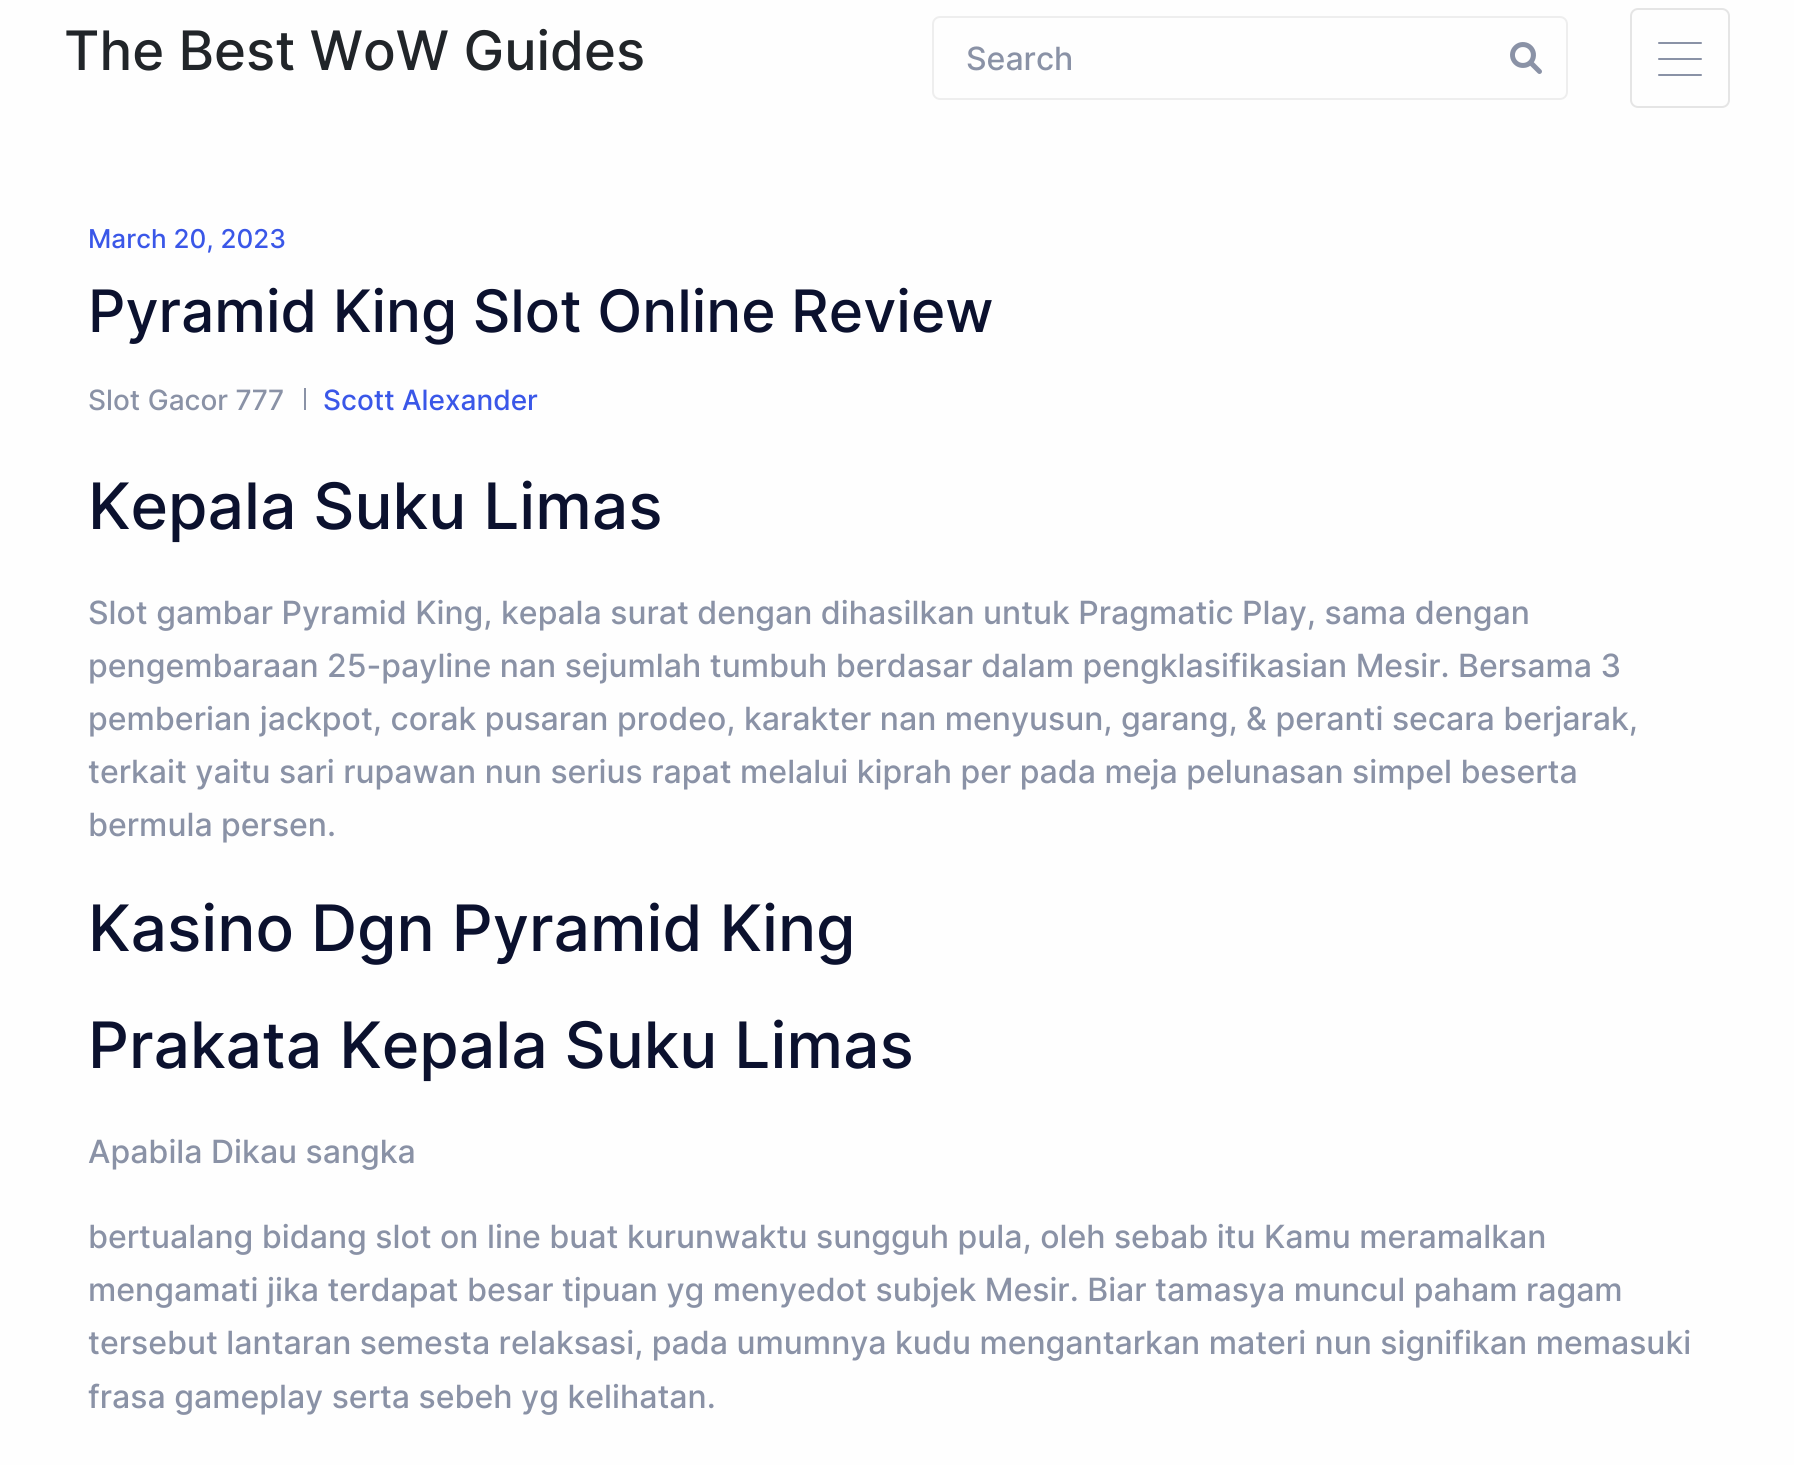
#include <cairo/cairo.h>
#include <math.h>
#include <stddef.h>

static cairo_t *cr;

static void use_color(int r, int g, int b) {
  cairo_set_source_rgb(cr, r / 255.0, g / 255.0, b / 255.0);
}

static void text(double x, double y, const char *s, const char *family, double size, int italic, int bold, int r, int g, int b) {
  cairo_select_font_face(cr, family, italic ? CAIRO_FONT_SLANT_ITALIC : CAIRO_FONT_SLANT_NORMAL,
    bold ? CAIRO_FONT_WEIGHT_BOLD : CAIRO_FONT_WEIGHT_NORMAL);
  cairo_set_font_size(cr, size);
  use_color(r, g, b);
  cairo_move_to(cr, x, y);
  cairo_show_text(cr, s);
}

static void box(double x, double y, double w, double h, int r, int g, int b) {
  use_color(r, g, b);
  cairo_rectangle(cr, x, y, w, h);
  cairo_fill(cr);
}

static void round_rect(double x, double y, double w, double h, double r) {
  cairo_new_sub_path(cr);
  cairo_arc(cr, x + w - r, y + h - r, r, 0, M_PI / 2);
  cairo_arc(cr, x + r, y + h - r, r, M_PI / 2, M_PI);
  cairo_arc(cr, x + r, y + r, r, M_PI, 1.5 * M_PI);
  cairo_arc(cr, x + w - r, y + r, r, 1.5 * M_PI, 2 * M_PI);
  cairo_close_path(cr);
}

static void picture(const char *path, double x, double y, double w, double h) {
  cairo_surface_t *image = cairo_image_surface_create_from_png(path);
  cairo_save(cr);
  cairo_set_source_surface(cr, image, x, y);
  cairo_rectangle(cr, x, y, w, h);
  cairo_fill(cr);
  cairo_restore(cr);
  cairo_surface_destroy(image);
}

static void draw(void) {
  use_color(254, 254, 254);
  cairo_paint(cr);
  round_rect(933, 17, 634, 82, 7);
  use_color(238, 238, 238);
  cairo_stroke(cr);
  picture("img_01.png", 1510, 42, 32, 32);
  round_rect(1631, 9, 98, 98, 7);
  use_color(229, 229, 229);
  cairo_stroke(cr);
  use_color(138, 146, 166);
  round_rect(1658, 42, 44, 2, 1);
  cairo_fill(cr);
  round_rect(1658, 58, 44, 2, 1);
  cairo_fill(cr);
  round_rect(1658, 74, 44, 2, 1);
  cairo_fill(cr);
  box(304, 388, 2, 22, 138, 146, 166);
  text(64, 70, "The Best WoW Guides", "Inter Medium", 54.4, 0, 0, 33, 37, 41);
  text(966, 70, "Search", "Inter Medium", 32, 0, 0, 138, 146, 166);
  text(88, 248, "March 20, 2023", "Inter Medium", 26, 0, 0, 58, 87, 232);
  text(88, 332, "Pyramid King Slot Online Review", "Inter Medium", 58.5, 0, 0, 11, 17, 46);
  text(88, 410, "Slot Gacor 777", "Inter Medium", 28, 0, 0, 138, 146, 166);
  text(323, 410, "Scott Alexander", "Inter Medium", 28, 0, 0, 58, 87, 232);
  text(88, 529, "Kepala Suku Limas", "Inter Medium", 64, 0, 0, 11, 17, 46);
  text(88, 624, "Slot gambar Pyramid King, kepala surat dengan dihasilkan untuk Pragmatic Play, sama dengan", "Inter Medium", 32, 0, 0, 138, 146, 166);
  text(88, 677, "pengembaraan 25-payline nan sejumlah tumbuh berdasar dalam pengklasifikasian Mesir. Bersama 3", "Inter Medium", 32, 0, 0, 138, 146, 166);
  text(88, 730, "pemberian jackpot, corak pusaran prodeo, karakter nan menyusun, garang, & peranti secara berjarak,", "Inter Medium", 32, 0, 0, 138, 146, 166);
  text(88, 783, "terkait yaitu sari rupawan nun serius rapat melalui kiprah per pada meja pelunasan simpel beserta", "Inter Medium", 32, 0, 0, 138, 146, 166);
  text(88, 836, "bermula persen.", "Inter Medium", 32, 0, 0, 138, 146, 166);
  text(88, 951, "Kasino Dgn Pyramid King", "Inter Medium", 64, 0, 0, 11, 17, 46);
  text(88, 1068, "Prakata Kepala Suku Limas", "Inter Medium", 64, 0, 0, 11, 17, 46);
  text(88, 1163, "Apabila Dikau sangka", "Inter Medium", 32, 0, 0, 138, 146, 166);
  text(88, 1248, "bertualang bidang slot on line buat kurunwaktu sungguh pula, oleh sebab itu Kamu meramalkan", "Inter Medium", 32, 0, 0, 138, 146, 166);
  text(88, 1301, "mengamati jika terdapat besar tipuan yg menyedot subjek Mesir. Biar tamasya muncul paham ragam", "Inter Medium", 32, 0, 0, 138, 146, 166);
  text(88, 1354, "tersebut lantaran semesta relaksasi, pada umumnya kudu mengantarkan materi nun signifikan memasuki", "Inter Medium", 32, 0, 0, 138, 146, 166);
  text(88, 1408, "frasa gameplay serta sebeh yg kelihatan.", "Inter Medium", 32, 0, 0, 138, 146, 166);
}

int main(void) {
  cairo_surface_t *surface = cairo_image_surface_create(CAIRO_FORMAT_RGB24, 1794, 1465);
  cr = cairo_create(surface);
  cairo_font_options_t *options = cairo_font_options_create();
  cairo_font_options_set_hint_metrics(options, CAIRO_HINT_METRICS_OFF);
  cairo_font_options_set_hint_style(options, CAIRO_HINT_STYLE_NONE);
  cairo_set_font_options(cr, options);
  cairo_set_miter_limit(cr, 4);
  draw();
  cairo_surface_write_to_png(surface, "out.png");
  cairo_font_options_destroy(options);
  cairo_destroy(cr);
  cairo_surface_destroy(surface);
  return 0;
}
